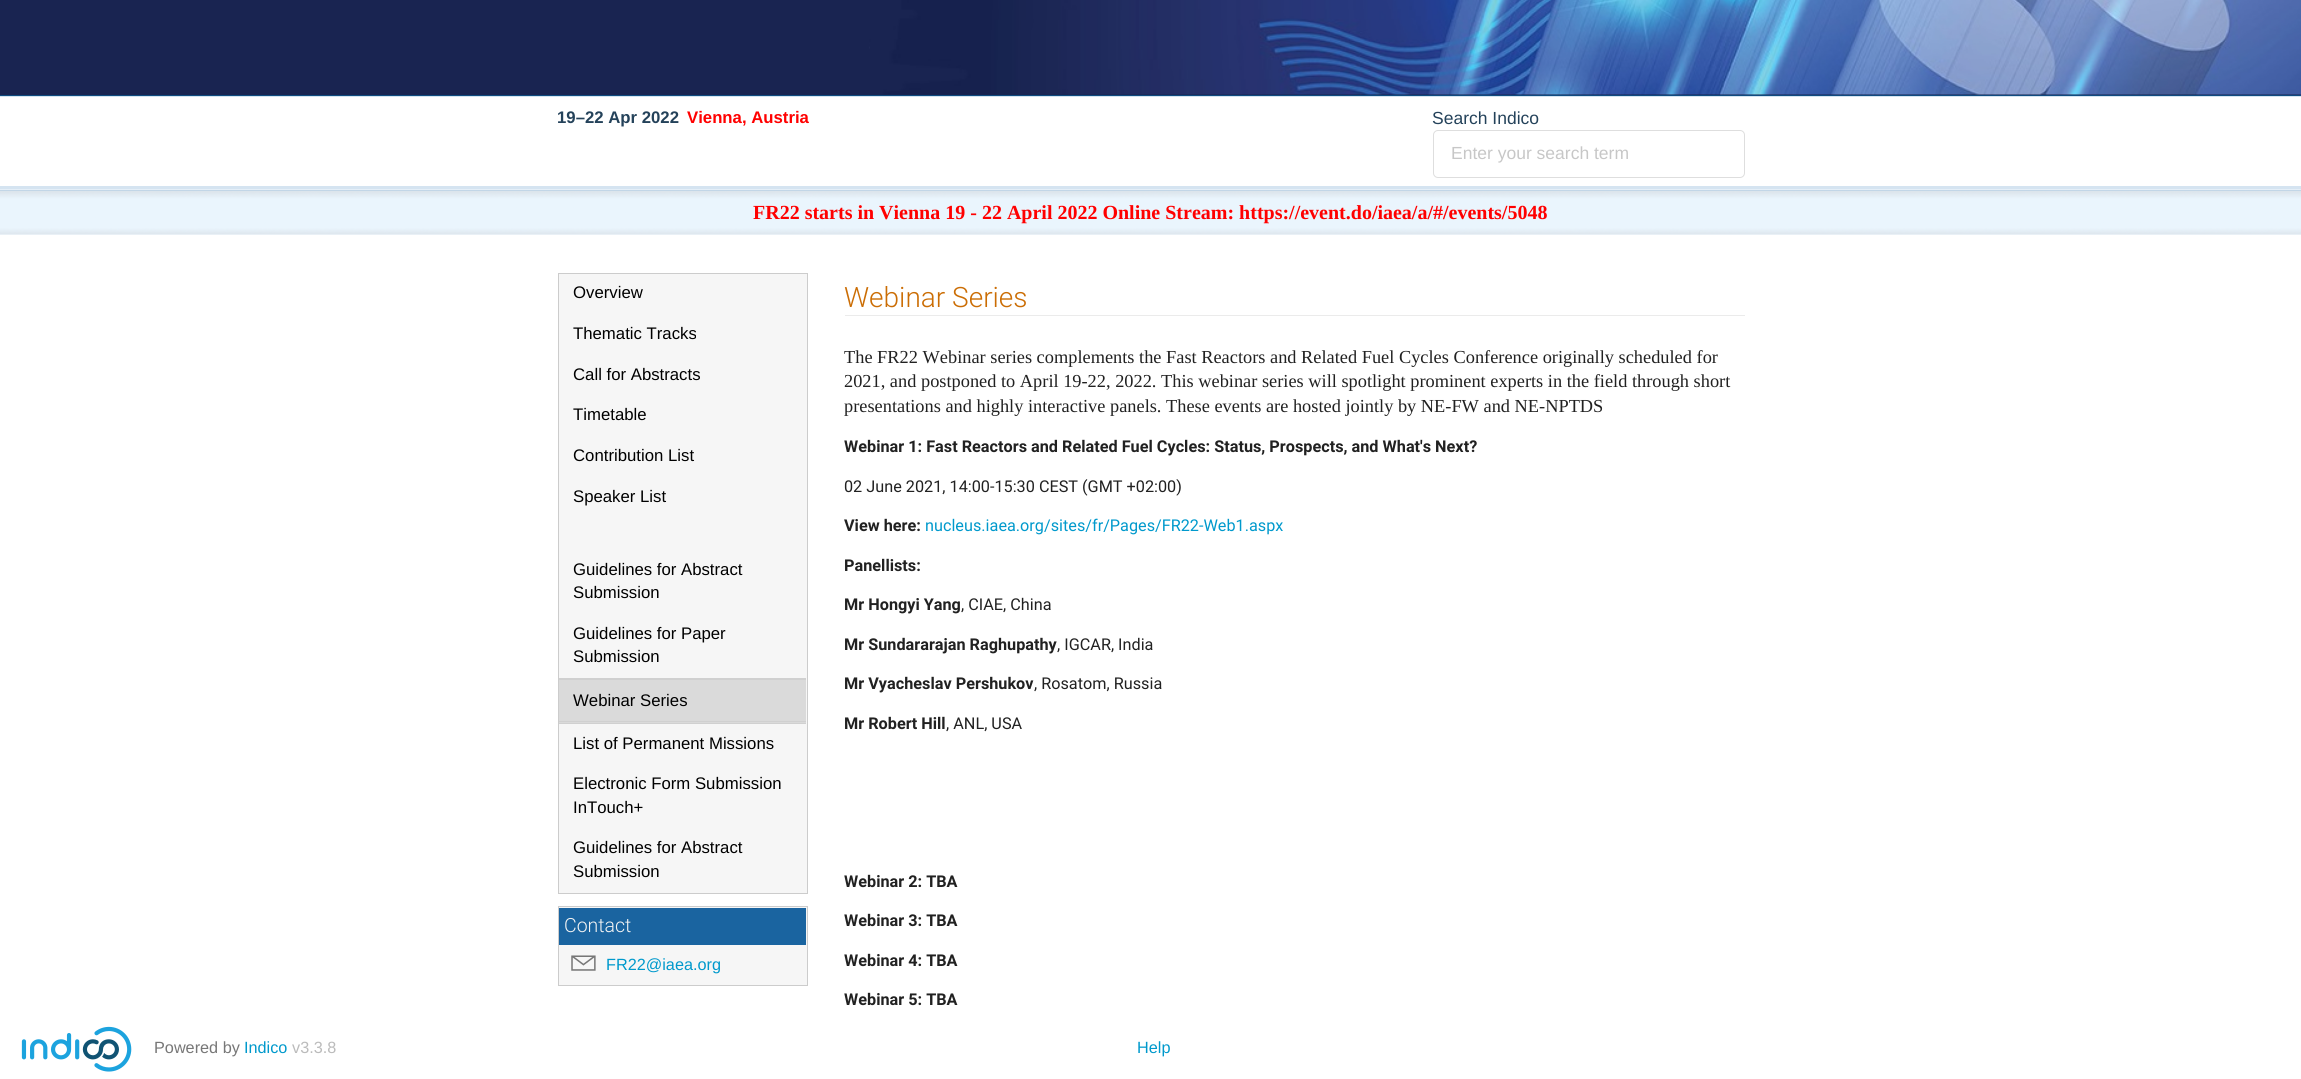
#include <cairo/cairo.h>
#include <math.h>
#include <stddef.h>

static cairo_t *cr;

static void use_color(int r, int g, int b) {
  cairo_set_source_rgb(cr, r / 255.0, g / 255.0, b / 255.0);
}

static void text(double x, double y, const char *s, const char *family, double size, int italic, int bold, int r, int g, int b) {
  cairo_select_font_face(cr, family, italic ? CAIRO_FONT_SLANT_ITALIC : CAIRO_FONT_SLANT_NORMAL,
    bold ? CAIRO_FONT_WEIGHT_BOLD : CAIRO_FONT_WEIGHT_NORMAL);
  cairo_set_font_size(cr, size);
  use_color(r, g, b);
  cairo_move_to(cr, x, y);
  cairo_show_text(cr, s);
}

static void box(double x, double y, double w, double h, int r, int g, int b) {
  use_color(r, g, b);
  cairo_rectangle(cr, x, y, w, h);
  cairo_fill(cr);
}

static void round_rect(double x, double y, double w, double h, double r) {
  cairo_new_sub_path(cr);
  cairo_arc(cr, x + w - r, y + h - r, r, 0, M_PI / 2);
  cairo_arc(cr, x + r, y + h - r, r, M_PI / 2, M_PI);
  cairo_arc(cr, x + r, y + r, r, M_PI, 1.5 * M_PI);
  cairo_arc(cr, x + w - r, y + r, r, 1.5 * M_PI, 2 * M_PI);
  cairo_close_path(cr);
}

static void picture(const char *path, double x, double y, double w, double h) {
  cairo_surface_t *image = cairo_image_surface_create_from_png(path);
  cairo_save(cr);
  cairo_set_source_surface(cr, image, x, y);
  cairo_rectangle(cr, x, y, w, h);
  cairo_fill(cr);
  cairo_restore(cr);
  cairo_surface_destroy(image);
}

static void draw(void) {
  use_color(255, 255, 255);
  cairo_paint(cr);
  box(0, 0, 2301, 95, 25, 36, 81);
  picture("img_01.png", 869, 0, 1432, 95);
  box(0, 95, 2301, 1, 15, 76, 128);
  box(0, 96, 2301, 1, 213, 228, 241);
  box(0, 186, 2301, 4, 213, 228, 241);
  round_rect(1433.5, 130.5, 311, 47, 4.5);
  use_color(222, 222, 222);
  cairo_set_line_width(cr, 1);
  cairo_stroke(cr);
  box(0, 234, 2301, 1, 245, 250, 255);
  picture("img_02.png", 0, 189, 2301, 46);
  box(0, 190, 2301, 1, 194, 214, 231);
  use_color(246, 246, 246);
  cairo_rectangle(cr, 558.5, 273.5, 249, 620);
  cairo_fill_preserve(cr);
  use_color(204, 204, 204);
  cairo_stroke(cr);
  box(559, 680, 247, 43, 218, 218, 218);
  box(559, 678, 247, 2, 208, 208, 208);
  box(559, 723, 247, 1, 208, 208, 208);
  box(559, 721, 247, 1, 208, 208, 208);
  use_color(246, 246, 246);
  cairo_rectangle(cr, 558.5, 906.5, 249, 79);
  cairo_fill_preserve(cr);
  use_color(204, 204, 204);
  cairo_stroke(cr);
  box(559, 908, 247, 37, 26, 100, 160);
  picture("img_03.png", 571, 955, 25, 16);
  box(845, 315, 900, 1, 235, 235, 235);
  picture("img_04.png", 21, 1026, 111, 46);
  text(557, 123, "19–22 Apr 2022", "Liberation Sans", 16.75, 0, 1, 36, 66, 90);
  text(687, 123, "Vienna, Austria", "Liberation Sans", 16.75, 0, 1, 255, 0, 0);
  text(1432, 124, "Search Indico", "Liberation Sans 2", 17.5, 0, 0, 36, 66, 90);
  text(1451, 159, "Enter your search term", "Liberation Sans 2", 17.5, 0, 0, 199, 199, 199);
  text(753, 219, "FR22 starts in Vienna 19 - 22 April 2022 Online Stream: https://event.do/iaea/a/#/events/5048", "Liberation Serif", 20, 0, 1, 255, 0, 0);
  text(573, 298, "Overview", "Liberation Sans 2", 16.75, 0, 0, 0, 0, 0);
  text(573, 339, "Thematic Tracks", "Liberation Sans 2", 16.75, 0, 0, 0, 0, 0);
  text(573, 380, "Call for Abstracts", "Liberation Sans 2", 16.75, 0, 0, 0, 0, 0);
  text(573, 420, "Timetable", "Liberation Sans 2", 16.75, 0, 0, 0, 0, 0);
  text(573, 461, "Contribution List", "Liberation Sans 2", 16.75, 0, 0, 0, 0, 0);
  text(573, 502, "Speaker List", "Liberation Sans 2", 16.75, 0, 0, 0, 0, 0);
  text(573, 575, "Guidelines for Abstract", "Liberation Sans 2", 16.75, 0, 0, 0, 0, 0);
  text(573, 598, "Submission", "Liberation Sans 2", 16.75, 0, 0, 0, 0, 0);
  text(573, 639, "Guidelines for Paper", "Liberation Sans 2", 16.75, 0, 0, 0, 0, 0);
  text(573, 662, "Submission", "Liberation Sans 2", 16.75, 0, 0, 0, 0, 0);
  text(573, 706, "Webinar Series", "Liberation Sans 2", 16.75, 0, 0, 0, 0, 0);
  text(573, 749, "List of Permanent Missions", "Liberation Sans 2", 16.75, 0, 0, 0, 0, 0);
  text(573, 789, "Electronic Form Submission", "Liberation Sans 2", 16.75, 0, 0, 0, 0, 0);
  text(573, 813, "InTouch+", "Liberation Sans 2", 16.75, 0, 0, 0, 0, 0);
  text(573, 853, "Guidelines for Abstract", "Liberation Sans 2", 16.75, 0, 0, 0, 0, 0);
  text(573, 877, "Submission", "Liberation Sans 2", 16.75, 0, 0, 0, 0, 0);
  text(564, 932, "Contact", "Roboto Light", 19.5, 0, 0, 243, 243, 243);
  text(606, 970, "FR22@iaea.org", "Liberation Sans", 16.25, 0, 0, 0, 153, 204);
  text(844, 307, "Webinar Series", "Roboto Light", 28, 0, 0, 203, 109, 4);
  text(844, 363, "The FR22 Webinar series complements the Fast Reactors and Related Fuel Cycles Conference originally scheduled for", "Liberation Serif", 18.35, 0, 0, 33, 33, 33);
  text(844, 387, "2021, and postponed to April 19-22, 2022. This webinar series will spotlight prominent experts in the field through short", "Liberation Serif", 18.35, 0, 0, 33, 33, 33);
  text(844, 412, "presentations and highly interactive panels. These events are hosted jointly by NE-FW and NE-NPTDS", "Liberation Serif", 18.35, 0, 0, 33, 33, 33);
  text(844, 452, "Webinar 1: Fast Reactors and Related Fuel Cycles: Status, Prospects, and What's Next?", "Roboto", 16.25, 0, 1, 33, 33, 33);
  text(844, 492, "02 June 2021, 14:00-15:30 CEST (GMT +02:00)", "Roboto", 16.25, 0, 0, 33, 33, 33);
  text(844, 531, "View here:", "Roboto", 16.25, 0, 1, 33, 33, 33);
  text(925, 531, "nucleus.iaea.org/sites/fr/Pages/FR22-Web1.aspx", "Roboto", 16.25, 0, 0, 0, 153, 204);
  text(844, 571, "Panellists:", "Roboto", 16.25, 0, 1, 33, 33, 33);
  text(844, 610, "Mr Hongyi Yang", "Roboto", 16.25, 0, 1, 33, 33, 33);
  text(961, 610, ", CIAE, China", "Roboto", 16.25, 0, 0, 33, 33, 33);
  text(844, 650, "Mr Sundararajan Raghupathy", "Roboto", 16.25, 0, 1, 33, 33, 33);
  text(1057, 650, ", IGCAR, India", "Roboto", 16.25, 0, 0, 33, 33, 33);
  text(844, 689, "Mr Vyacheslav Pershukov", "Roboto", 16.25, 0, 1, 33, 33, 33);
  text(1034, 689, ", Rosatom, Russia", "Roboto", 16.25, 0, 0, 33, 33, 33);
  text(844, 729, "Mr Robert Hill", "Roboto", 16.25, 0, 1, 33, 33, 33);
  text(946, 729, ", ANL, USA", "Roboto", 16.25, 0, 0, 33, 33, 33);
  text(844, 887, "Webinar 2: TBA", "Roboto", 16.25, 0, 1, 33, 33, 33);
  text(844, 926, "Webinar 3: TBA", "Roboto", 16.25, 0, 1, 33, 33, 33);
  text(844, 966, "Webinar 4: TBA", "Roboto", 16.25, 0, 1, 33, 33, 33);
  text(844, 1005, "Webinar 5: TBA", "Roboto", 16.25, 0, 1, 33, 33, 33);
  text(154, 1053, "Powered by", "Liberation Sans", 16.25, 0, 0, 119, 119, 119);
  text(244, 1053, "Indico", "Liberation Sans", 16.25, 0, 0, 0, 153, 204);
  text(292, 1053, "v3.3.8", "Liberation Sans", 16.25, 0, 0, 187, 187, 187);
  text(1137, 1053, "Help", "Liberation Sans", 16.25, 0, 0, 0, 153, 204);
}

int main(void) {
  cairo_surface_t *surface = cairo_image_surface_create(CAIRO_FORMAT_RGB24, 2301, 1079);
  cr = cairo_create(surface);
  cairo_font_options_t *options = cairo_font_options_create();
  cairo_font_options_set_hint_metrics(options, CAIRO_HINT_METRICS_OFF);
  cairo_font_options_set_hint_style(options, CAIRO_HINT_STYLE_NONE);
  cairo_set_font_options(cr, options);
  cairo_set_miter_limit(cr, 4);
  draw();
  cairo_surface_write_to_png(surface, "out.png");
  cairo_font_options_destroy(options);
  cairo_destroy(cr);
  cairo_surface_destroy(surface);
  return 0;
}
